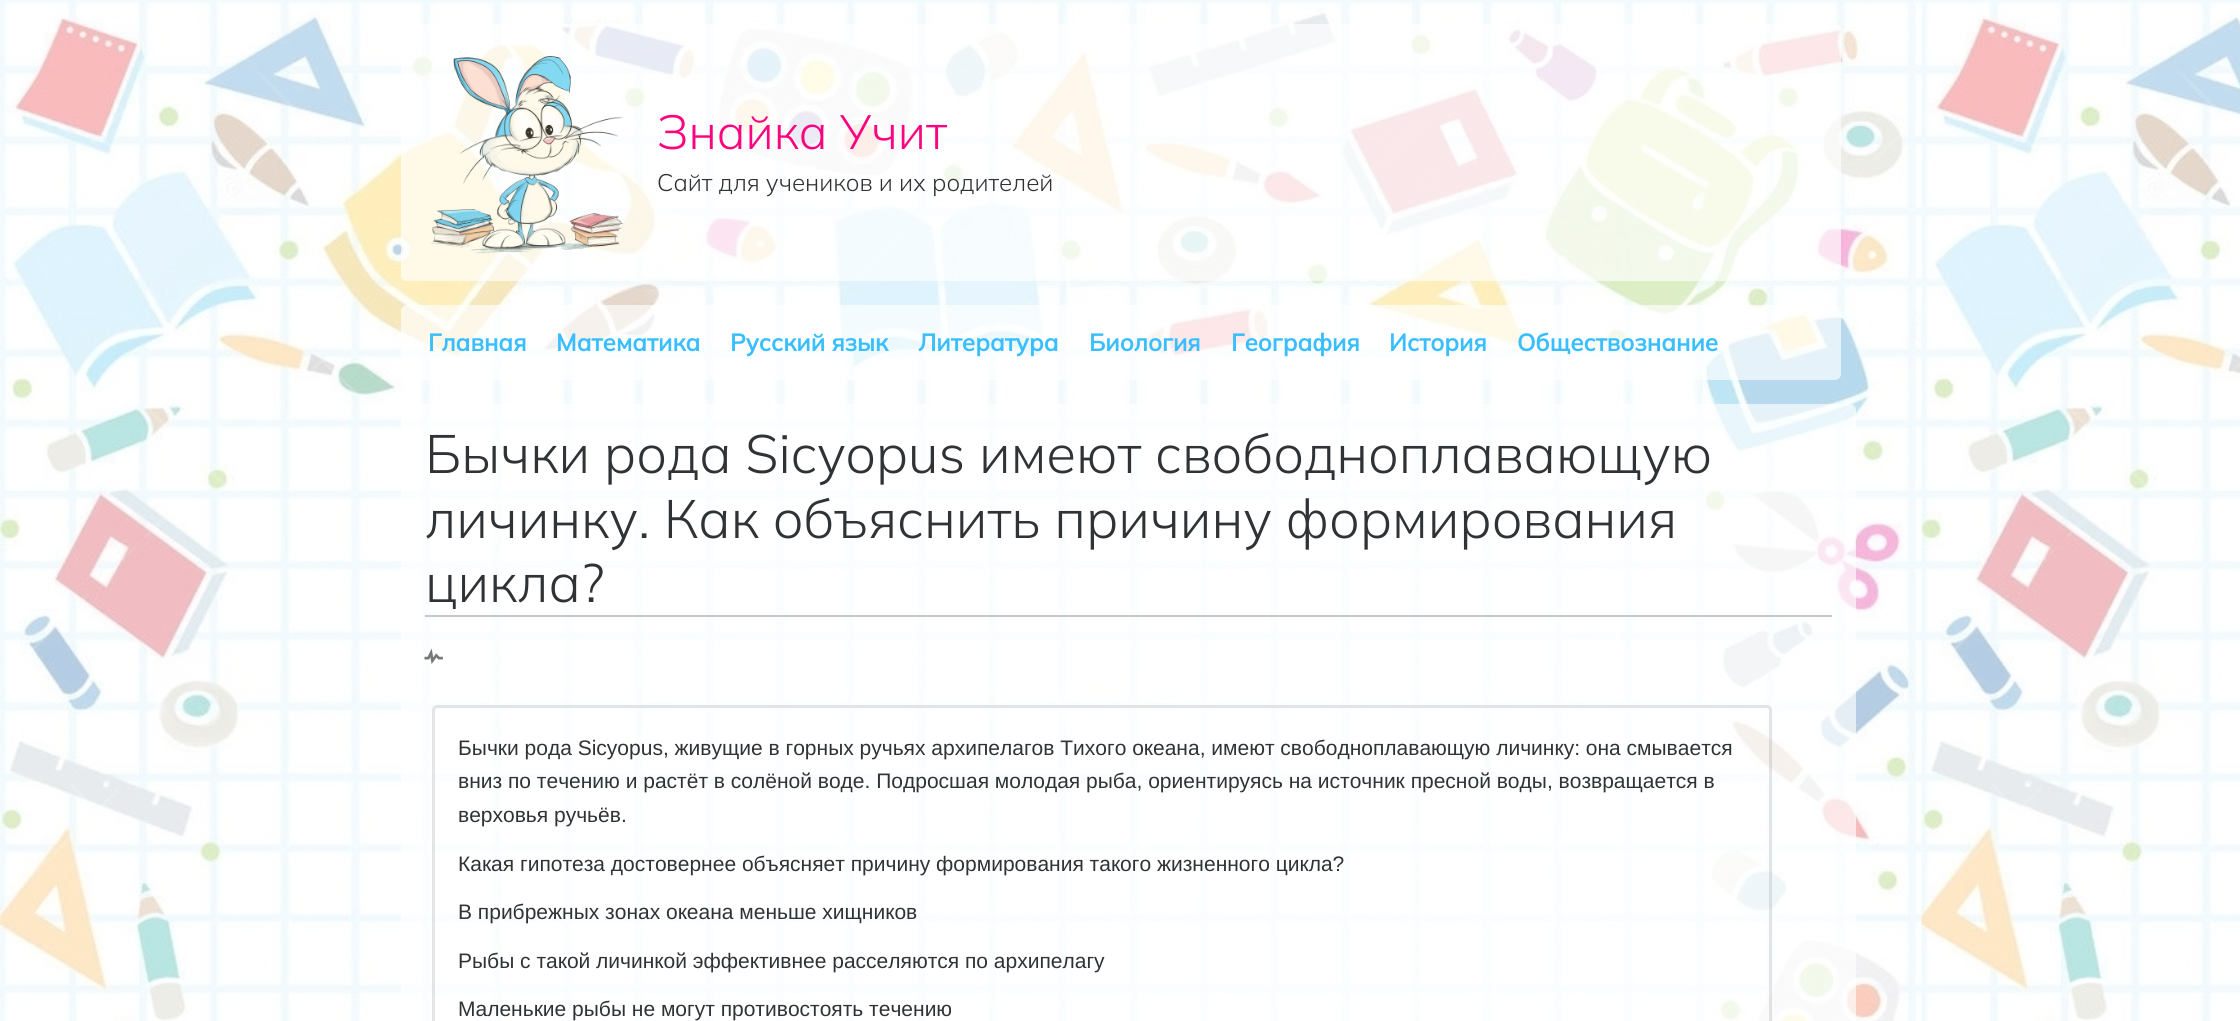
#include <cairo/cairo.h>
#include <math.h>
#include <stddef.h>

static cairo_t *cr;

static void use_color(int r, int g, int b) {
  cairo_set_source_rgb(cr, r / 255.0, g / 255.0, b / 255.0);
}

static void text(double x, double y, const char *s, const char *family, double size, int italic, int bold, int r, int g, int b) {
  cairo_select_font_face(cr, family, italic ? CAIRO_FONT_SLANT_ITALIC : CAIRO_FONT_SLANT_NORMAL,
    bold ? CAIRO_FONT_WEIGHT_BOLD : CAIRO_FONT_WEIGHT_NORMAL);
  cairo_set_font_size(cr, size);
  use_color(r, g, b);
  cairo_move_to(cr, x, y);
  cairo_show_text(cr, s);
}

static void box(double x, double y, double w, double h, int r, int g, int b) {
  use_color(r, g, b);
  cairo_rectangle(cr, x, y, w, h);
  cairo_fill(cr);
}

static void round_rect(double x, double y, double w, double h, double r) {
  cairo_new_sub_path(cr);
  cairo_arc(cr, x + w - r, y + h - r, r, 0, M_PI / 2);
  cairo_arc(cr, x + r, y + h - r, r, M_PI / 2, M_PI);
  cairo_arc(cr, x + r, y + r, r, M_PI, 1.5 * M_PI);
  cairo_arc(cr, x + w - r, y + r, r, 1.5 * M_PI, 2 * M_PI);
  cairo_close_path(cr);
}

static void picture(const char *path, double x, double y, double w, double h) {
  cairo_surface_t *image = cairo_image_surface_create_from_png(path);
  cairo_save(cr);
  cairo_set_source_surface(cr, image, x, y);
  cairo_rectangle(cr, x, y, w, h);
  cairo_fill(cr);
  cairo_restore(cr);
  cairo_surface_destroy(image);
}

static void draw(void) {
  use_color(255, 255, 255);
  cairo_paint(cr);
  picture("img_01.png", 0, 0, 2240, 1021);
  cairo_set_source_rgba(cr, 1, 1, 1, 0.65);
  round_rect(401, 24, 1440, 257, 6);
  cairo_fill(cr);
  picture("img_02.png", 430, 56, 194, 198);
  round_rect(401, 305, 1440, 75, 6);
  cairo_fill(cr);
  round_rect(401, 404, 1455, 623, 6);
  cairo_fill(cr);
  box(425, 615, 1407, 2, 198, 201, 204);
  picture("img_03.png", 424, 648, 19, 16);
  round_rect(433.5, 706.5, 1337, 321, 3.5);
  cairo_set_source_rgba(cr, 0, 0, 0, 0.1);
  cairo_set_line_width(cr, 3);
  cairo_stroke(cr);
  text(657, 149, "Знайка Учит", "Mulish Light", 48, 0, 0, 252, 3, 128);
  text(657, 191, "Сайт для учеников и их родителей", "Mulish Light", 24, 0, 0, 48, 51, 54);
  text(428, 351, "Главная", "Mulish", 24, 0, 1, 57, 190, 255);
  text(556, 351, "Математика", "Mulish", 24, 0, 1, 57, 190, 255);
  text(730, 351, "Русский язык", "Mulish", 24, 0, 1, 57, 190, 255);
  text(918, 351, "Литература", "Mulish", 24, 0, 1, 57, 190, 255);
  text(1089, 351, "Биология", "Mulish", 24, 0, 1, 57, 190, 255);
  text(1231, 351, "География", "Mulish", 24, 0, 1, 57, 190, 255);
  text(1389, 351, "История", "Mulish", 24, 0, 1, 57, 190, 255);
  text(1517, 351, "Обществознание", "Mulish", 24, 0, 1, 57, 190, 255);
  text(425, 473, "Бычки рода Sicyopus имеют свободноплавающую", "Mulish Light", 54, 0, 0, 48, 51, 54);
  text(425, 538, "личинку. Как объяснить причину формирования", "Mulish Light", 54, 0, 0, 48, 51, 54);
  text(425, 602, "цикла?", "Mulish Light", 54, 0, 0, 48, 51, 54);
  text(458, 755, "Бычки рода Sicyopus, живущие в горных ручьях архипелагов Тихого океана, имеют свободноплавающую личинку: она смывается", "Liberation Sans", 21, 0, 0, 48, 51, 54);
  text(458, 788, "вниз по течению и растёт в солёной воде. Подросшая молодая рыба, ориентируясь на источник пресной воды, возвращается в", "Liberation Sans", 21, 0, 0, 48, 51, 54);
  text(458, 822, "верховья ручьёв.", "Liberation Sans", 21, 0, 0, 48, 51, 54);
  text(458, 871, "Какая гипотеза достовернее объясняет причину формирования такого жизненного цикла?", "Liberation Sans", 21, 0, 0, 48, 51, 54);
  text(458, 919, "В прибрежных зонах океана меньше хищников", "Liberation Sans", 21, 0, 0, 48, 51, 54);
  text(458, 968, "Рыбы с такой личинкой эффективнее расселяются по архипелагу", "Liberation Sans", 21, 0, 0, 48, 51, 54);
  text(458, 1016, "Маленькие рыбы не могут противостоять течению", "Liberation Sans", 21, 0, 0, 48, 51, 54);
}

int main(void) {
  cairo_surface_t *surface = cairo_image_surface_create(CAIRO_FORMAT_RGB24, 2240, 1021);
  cr = cairo_create(surface);
  cairo_font_options_t *options = cairo_font_options_create();
  cairo_font_options_set_hint_metrics(options, CAIRO_HINT_METRICS_OFF);
  cairo_font_options_set_hint_style(options, CAIRO_HINT_STYLE_NONE);
  cairo_set_font_options(cr, options);
  cairo_set_miter_limit(cr, 4);
  draw();
  cairo_surface_write_to_png(surface, "out.png");
  cairo_font_options_destroy(options);
  cairo_destroy(cr);
  cairo_surface_destroy(surface);
  return 0;
}
